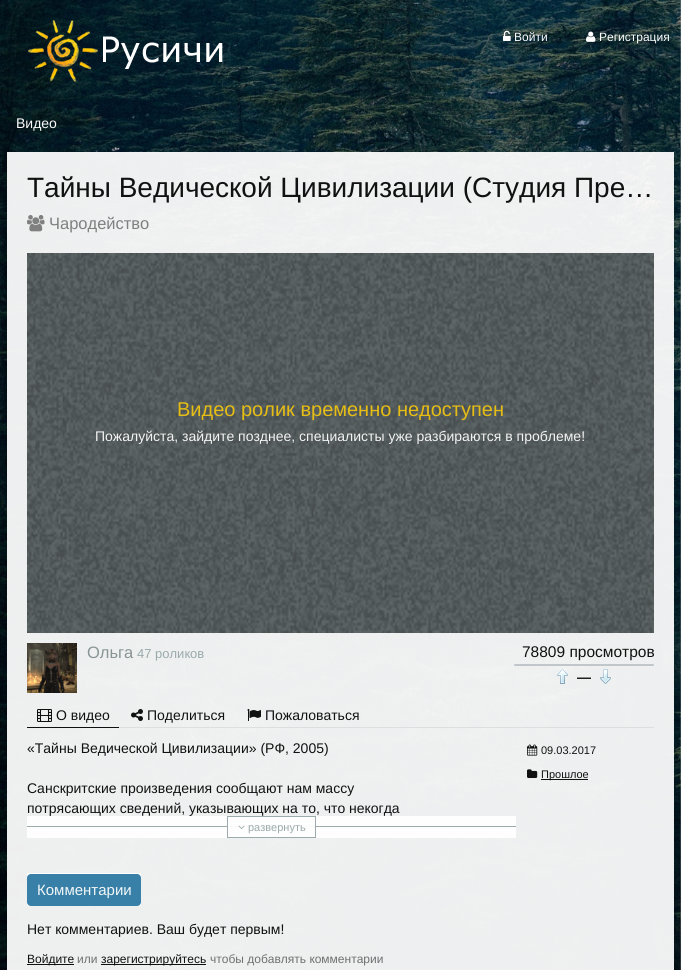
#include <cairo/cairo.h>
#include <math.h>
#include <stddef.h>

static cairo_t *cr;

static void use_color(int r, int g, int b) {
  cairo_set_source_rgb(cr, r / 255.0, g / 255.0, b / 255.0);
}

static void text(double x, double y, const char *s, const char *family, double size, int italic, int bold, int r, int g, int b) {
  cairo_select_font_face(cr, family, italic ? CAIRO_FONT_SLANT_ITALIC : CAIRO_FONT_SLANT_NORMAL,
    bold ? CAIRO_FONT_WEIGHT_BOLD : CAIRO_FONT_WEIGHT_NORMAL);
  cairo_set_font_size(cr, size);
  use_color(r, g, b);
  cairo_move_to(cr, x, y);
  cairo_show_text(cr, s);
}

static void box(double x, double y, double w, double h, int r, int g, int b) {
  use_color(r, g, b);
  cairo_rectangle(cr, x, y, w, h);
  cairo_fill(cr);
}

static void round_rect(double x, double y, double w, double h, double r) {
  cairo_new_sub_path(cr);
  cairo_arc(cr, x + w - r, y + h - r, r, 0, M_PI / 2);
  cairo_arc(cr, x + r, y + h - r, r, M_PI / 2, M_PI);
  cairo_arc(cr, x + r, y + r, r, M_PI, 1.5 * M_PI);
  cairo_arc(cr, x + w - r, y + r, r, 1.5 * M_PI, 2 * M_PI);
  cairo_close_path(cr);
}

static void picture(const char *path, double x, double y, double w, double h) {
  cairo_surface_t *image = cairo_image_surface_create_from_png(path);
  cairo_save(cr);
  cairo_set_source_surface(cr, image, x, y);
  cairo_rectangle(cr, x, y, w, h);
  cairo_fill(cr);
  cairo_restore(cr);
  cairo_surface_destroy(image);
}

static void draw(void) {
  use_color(255, 255, 255);
  cairo_paint(cr);
  picture("img_01.png", 0, 0, 681, 970);
  picture("img_02.png", 28, 20, 195, 62);
  picture("img_03.png", 503, 30, 8, 11);
  picture("img_04.png", 586, 31, 10, 11);
  cairo_set_source_rgba(cr, 1, 1, 1, 0.93);
  cairo_rectangle(cr, 7, 152, 667, 818);
  cairo_fill(cr);
  picture("img_05.png", 27, 215, 18, 17);
  box(27, 253, 627, 380, 96, 104, 105);
  picture("img_06.png", 27, 253, 627, 380);
  picture("img_07.png", 27, 643, 50, 50);
  cairo_set_source_rgba(cr, 0.741, 0.765, 0.78, 0.93);
  round_rect(514, 664, 140, 2, 1);
  cairo_fill(cr);
  picture("img_08.png", 557, 669, 11, 15);
  picture("img_09.png", 600, 669, 11, 15);
  cairo_set_source_rgba(cr, 0.867, 0.867, 0.867, 0.93);
  cairo_rectangle(cr, 119, 727, 535, 1);
  cairo_fill(cr);
  box(27, 727, 92, 1, 16, 16, 16);
  picture("img_10.png", 37, 709, 15, 13);
  picture("img_11.png", 131, 709, 12, 12);
  picture("img_12.png", 247, 709, 14, 12);
  cairo_set_source_rgba(cr, 1, 1, 1, 0.93);
  cairo_rectangle(cr, 27, 816, 489, 22);
  cairo_fill(cr);
  cairo_set_source_rgba(cr, 0.584, 0.647, 0.651, 0.93);
  cairo_rectangle(cr, 27, 826, 489, 1);
  cairo_fill(cr);
  cairo_set_source_rgba(cr, 1, 1, 1, 0.93);
  cairo_rectangle(cr, 227, 826, 89, 1);
  cairo_fill(cr);
  cairo_rectangle(cr, 227.5, 816.5, 88, 21);
  cairo_set_source_rgba(cr, 0.584, 0.647, 0.651, 0.93);
  cairo_set_line_width(cr, 1);
  cairo_stroke(cr);
  picture("img_13.png", 238, 825, 7, 5);
  picture("img_14.png", 527, 744, 11, 12);
  picture("img_15.png", 527, 769, 11, 9);
  cairo_set_source_rgba(cr, 0, 0, 0, 0.93);
  cairo_rectangle(cr, 541, 779, 47, 1);
  cairo_fill(cr);
  cairo_set_source_rgba(cr, 1, 1, 1, 0.93);
  cairo_rectangle(cr, 27, 873, 114, 33);
  cairo_fill(cr);
  use_color(56, 128, 167);
  round_rect(27, 874, 114, 32, 4);
  cairo_fill(cr);
  box(27, 964, 47, 1, 17, 17, 17);
  box(101, 964, 105, 1, 17, 17, 17);
  text(514, 41, "Войти", "Liberation Sans", 12, 0, 0, 253, 253, 253);
  text(599, 41, "Регистрация", "Liberation Sans", 12, 0, 0, 253, 253, 253);
  text(16, 128, "Видео", "Liberation Sans", 14, 0, 0, 253, 253, 253);
  text(27, 197, "Тайны Ведической Цивилизации (Студия Пре…", "Liberation Sans", 28, 0, 0, 17, 17, 17);
  text(49, 229, "Чародейство", "Liberation Sans", 16.5, 0, 0, 127, 127, 127);
  text(177, 416, "Видео ролик временно недоступен", "Liberation Sans", 20, 0, 0, 230, 189, 20);
  text(95, 441, "Пожалуйста, зайдите позднее, специалисты уже разбираются в проблеме!", "Liberation Sans", 14, 0, 0, 243, 243, 243);
  text(87, 658, "Ольга", "Liberation Sans", 16.5, 0, 0, 135, 147, 148);
  text(137, 658, "47 роликов", "Liberation Sans", 13, 0, 0, 155, 170, 171);
  text(522, 657, "78809 просмотров", "Liberation Sans", 15.5, 0, 0, 17, 17, 17);
  text(577, 682, "—", "Liberation Sans", 14, 0, 1, 17, 17, 17);
  text(56, 720, "О видео", "Liberation Sans", 14, 0, 0, 17, 17, 17);
  text(147, 720, "Поделиться", "Liberation Sans", 14, 0, 0, 17, 17, 17);
  text(265, 720, "Пожаловаться", "Liberation Sans", 14, 0, 0, 17, 17, 17);
  text(27, 753, "«Тайны Ведической Цивилизации» (РФ, 2005)", "Liberation Sans", 14, 0, 0, 17, 17, 17);
  text(27, 793, "Санскритские произведения сообщают нам массу", "Liberation Sans", 14, 0, 0, 17, 17, 17);
  text(27, 813, "потрясающих сведений, указывающих на то, что некогда", "Liberation Sans", 14, 0, 0, 17, 17, 17);
  text(248, 831, "развернуть", "Liberation Sans", 11, 0, 0, 155, 170, 171);
  text(541, 754, "09.03.2017", "Liberation Sans", 11, 0, 0, 17, 17, 17);
  text(541, 778, "Прошлое", "Liberation Sans", 11, 0, 0, 17, 17, 17);
  text(37, 895, "Комментарии", "Liberation Sans", 15, 0, 0, 241, 246, 249);
  text(27, 934, "Нет комментариев. Ваш будет первым!", "Liberation Sans", 14, 0, 0, 17, 17, 17);
  text(27, 963, "Войдите", "Liberation Sans", 12, 0, 0, 17, 17, 17);
  text(77, 963, "или", "Liberation Sans", 12, 0, 0, 111, 112, 112);
  text(101, 963, "зарегистрируйтесь", "Liberation Sans", 12, 0, 0, 17, 17, 17);
  text(210, 963, "чтобы добавлять комментарии", "Liberation Sans", 12, 0, 0, 111, 112, 112);
}

int main(void) {
  cairo_surface_t *surface = cairo_image_surface_create(CAIRO_FORMAT_RGB24, 681, 970);
  cr = cairo_create(surface);
  cairo_font_options_t *options = cairo_font_options_create();
  cairo_font_options_set_hint_metrics(options, CAIRO_HINT_METRICS_OFF);
  cairo_font_options_set_hint_style(options, CAIRO_HINT_STYLE_NONE);
  cairo_set_font_options(cr, options);
  cairo_set_miter_limit(cr, 4);
  draw();
  cairo_surface_write_to_png(surface, "out.png");
  cairo_font_options_destroy(options);
  cairo_destroy(cr);
  cairo_surface_destroy(surface);
  return 0;
}
